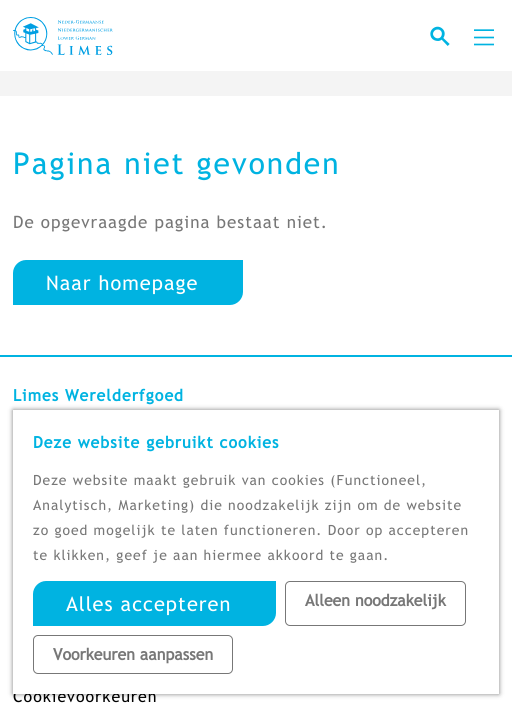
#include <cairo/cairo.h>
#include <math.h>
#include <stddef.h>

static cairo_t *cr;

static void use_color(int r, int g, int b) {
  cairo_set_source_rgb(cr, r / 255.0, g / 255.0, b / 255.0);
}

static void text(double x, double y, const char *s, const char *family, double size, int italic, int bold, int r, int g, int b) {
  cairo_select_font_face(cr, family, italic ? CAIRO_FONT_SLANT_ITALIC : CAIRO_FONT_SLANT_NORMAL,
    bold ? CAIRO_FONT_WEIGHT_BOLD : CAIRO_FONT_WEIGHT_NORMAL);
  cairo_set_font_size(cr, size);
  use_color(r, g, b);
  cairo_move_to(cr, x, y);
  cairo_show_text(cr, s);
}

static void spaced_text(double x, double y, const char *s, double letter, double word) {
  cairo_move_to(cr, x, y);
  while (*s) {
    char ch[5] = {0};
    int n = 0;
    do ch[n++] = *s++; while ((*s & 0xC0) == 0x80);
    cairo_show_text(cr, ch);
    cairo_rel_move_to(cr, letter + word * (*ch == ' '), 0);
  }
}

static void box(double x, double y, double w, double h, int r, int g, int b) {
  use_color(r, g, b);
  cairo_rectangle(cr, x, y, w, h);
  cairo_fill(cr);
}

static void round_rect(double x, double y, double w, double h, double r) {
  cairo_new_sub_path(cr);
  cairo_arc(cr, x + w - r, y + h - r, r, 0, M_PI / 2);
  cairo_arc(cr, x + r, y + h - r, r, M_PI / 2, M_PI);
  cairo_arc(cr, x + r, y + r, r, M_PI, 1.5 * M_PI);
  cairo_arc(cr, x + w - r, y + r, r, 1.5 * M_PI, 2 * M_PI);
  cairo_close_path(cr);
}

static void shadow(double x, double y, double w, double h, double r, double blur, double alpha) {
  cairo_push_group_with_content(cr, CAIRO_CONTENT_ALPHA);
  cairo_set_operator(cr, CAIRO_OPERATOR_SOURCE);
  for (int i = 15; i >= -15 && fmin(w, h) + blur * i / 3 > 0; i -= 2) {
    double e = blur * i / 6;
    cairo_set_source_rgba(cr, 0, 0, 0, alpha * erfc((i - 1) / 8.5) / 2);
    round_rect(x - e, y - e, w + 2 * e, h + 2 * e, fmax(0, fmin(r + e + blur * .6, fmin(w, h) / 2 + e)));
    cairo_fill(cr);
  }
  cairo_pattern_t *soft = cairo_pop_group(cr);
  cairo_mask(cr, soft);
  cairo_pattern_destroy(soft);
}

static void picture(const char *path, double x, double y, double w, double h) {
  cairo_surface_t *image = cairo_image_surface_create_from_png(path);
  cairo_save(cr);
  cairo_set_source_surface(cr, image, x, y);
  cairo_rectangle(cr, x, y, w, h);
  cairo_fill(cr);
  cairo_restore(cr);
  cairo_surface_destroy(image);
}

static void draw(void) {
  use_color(255, 255, 255);
  cairo_paint(cr);
  picture("img_01.png", 13, 17, 100, 38);
  picture("img_02.png", 430, 26, 20, 20);
  picture("img_03.png", 474, 29, 20, 17);
  box(0, 71, 512, 25, 244, 244, 244);
  use_color(0, 179, 225);
  cairo_new_path(cr);
  cairo_move_to(cr, 26, 260);
  cairo_line_to(cr, 243, 260);
  cairo_line_to(cr, 243, 292);
  cairo_curve_to(cr, 243, 299, 237, 305, 230, 305);
  cairo_line_to(cr, 13, 305);
  cairo_line_to(cr, 13, 273);
  cairo_curve_to(cr, 13, 266, 19, 260, 26, 260);
  cairo_close_path(cr);
  cairo_fill(cr);
  box(0, 355, 512, 2, 0, 179, 225);
  use_color(0, 0, 0);
  shadow(13, 410, 486, 284, 0, 2.5, 0.5);
  cairo_select_font_face(cr, "Trebuchet MS", CAIRO_FONT_SLANT_NORMAL, CAIRO_FONT_WEIGHT_NORMAL);
  cairo_set_font_size(cr, 30);
  use_color(0, 179, 225);
  spaced_text(13, 174, "Pagina niet gevonden", 2, 0);
  cairo_set_font_size(cr, 17);
  use_color(119, 119, 119);
  spaced_text(13, 228, "De opgevraagde pagina bestaat niet.", 1, 0);
  cairo_set_font_size(cr, 20);
  use_color(255, 255, 255);
  spaced_text(46, 290, "Naar homepage", 1, 0);
  cairo_select_font_face(cr, "Trebuchet MS", CAIRO_FONT_SLANT_NORMAL, CAIRO_FONT_WEIGHT_BOLD);
  cairo_set_font_size(cr, 16);
  use_color(0, 179, 225);
  spaced_text(13, 401, "Limes Werelderfgoed", 1, 0);
  cairo_select_font_face(cr, "Trebuchet MS", CAIRO_FONT_SLANT_NORMAL, CAIRO_FONT_WEIGHT_NORMAL);
  use_color(0, 0, 0);
  spaced_text(13, 702, "Cookievoorkeuren", 1, 0);
  box(13, 410, 486, 284, 255, 255, 255);
  cairo_select_font_face(cr, "Trebuchet MS", CAIRO_FONT_SLANT_NORMAL, CAIRO_FONT_WEIGHT_BOLD);
  use_color(0, 179, 225);
  spaced_text(33, 448, "Deze website gebruikt cookies", 1, 0);
  cairo_select_font_face(cr, "Trebuchet MS", CAIRO_FONT_SLANT_NORMAL, CAIRO_FONT_WEIGHT_NORMAL);
  cairo_set_font_size(cr, 14);
  use_color(119, 119, 119);
  spaced_text(33, 485, "Deze website maakt gebruik van cookies (Functioneel,", 1, 0);
  spaced_text(33, 510, "Analytisch, Marketing) die noodzakelijk zijn om de website", 1, 0);
  spaced_text(33, 535, "zo goed mogelijk te laten functioneren. Door op accepteren", 1, 0);
  spaced_text(33, 560, "te klikken, geef je aan hiermee akkoord te gaan.", 1, 0);
  use_color(0, 179, 225);
  cairo_new_path(cr);
  cairo_move_to(cr, 46, 581);
  cairo_line_to(cr, 276, 581);
  cairo_line_to(cr, 276, 613);
  cairo_curve_to(cr, 276, 620, 270, 626, 263, 626);
  cairo_line_to(cr, 33, 626);
  cairo_line_to(cr, 33, 594);
  cairo_curve_to(cr, 33, 587, 39, 581, 46, 581);
  cairo_close_path(cr);
  cairo_fill(cr);
  cairo_set_font_size(cr, 20);
  use_color(255, 255, 255);
  spaced_text(66, 611, "Alles accepteren", 1, 0);
  round_rect(285.5, 581.5, 180, 44, 4.5);
  use_color(119, 119, 119);
  cairo_set_line_width(cr, 1);
  cairo_stroke(cr);
  text(305, 606, "Alleen noodzakelijk", "Trebuchet MS", 16, 0, 1, 119, 119, 119);
  round_rect(33.5, 635.5, 199, 38, 4.5);
  cairo_stroke(cr);
  text(53, 660, "Voorkeuren aanpassen", "Trebuchet MS", 16, 0, 1, 119, 119, 119);
}

int main(void) {
  cairo_surface_t *surface = cairo_image_surface_create(CAIRO_FORMAT_RGB24, 512, 707);
  cr = cairo_create(surface);
  cairo_font_options_t *options = cairo_font_options_create();
  cairo_font_options_set_hint_metrics(options, CAIRO_HINT_METRICS_OFF);
  cairo_font_options_set_hint_style(options, CAIRO_HINT_STYLE_NONE);
  cairo_set_font_options(cr, options);
  cairo_set_miter_limit(cr, 4);
  draw();
  cairo_surface_write_to_png(surface, "out.png");
  cairo_font_options_destroy(options);
  cairo_destroy(cr);
  cairo_surface_destroy(surface);
  return 0;
}
